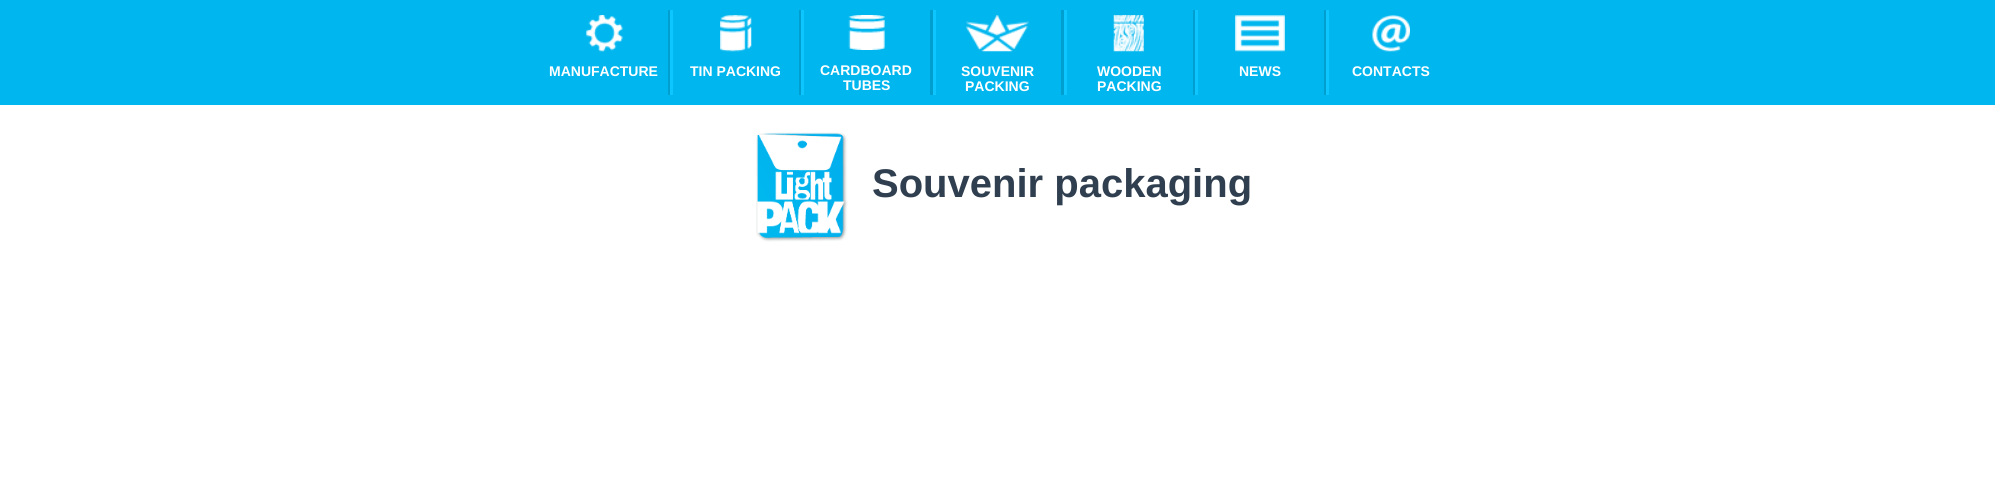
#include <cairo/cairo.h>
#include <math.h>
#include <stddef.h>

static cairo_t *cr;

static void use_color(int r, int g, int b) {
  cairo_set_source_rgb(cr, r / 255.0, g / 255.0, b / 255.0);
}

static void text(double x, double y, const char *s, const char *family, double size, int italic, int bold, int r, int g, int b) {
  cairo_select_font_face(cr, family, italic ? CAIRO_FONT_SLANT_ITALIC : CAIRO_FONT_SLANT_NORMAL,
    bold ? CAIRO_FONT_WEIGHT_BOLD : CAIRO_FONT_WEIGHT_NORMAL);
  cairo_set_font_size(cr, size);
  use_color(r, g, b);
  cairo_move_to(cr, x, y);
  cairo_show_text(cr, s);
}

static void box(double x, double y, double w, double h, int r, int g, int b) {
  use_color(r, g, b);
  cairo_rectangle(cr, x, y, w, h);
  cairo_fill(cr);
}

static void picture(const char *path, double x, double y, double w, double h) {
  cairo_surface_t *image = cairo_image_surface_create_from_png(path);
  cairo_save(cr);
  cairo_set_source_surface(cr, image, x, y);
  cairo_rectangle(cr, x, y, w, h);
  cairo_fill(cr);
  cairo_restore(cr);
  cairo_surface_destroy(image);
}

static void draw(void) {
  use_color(255, 255, 255);
  cairo_paint(cr);
  box(0, 0, 1995, 105, 0, 182, 238);
  picture("img_01.png", 586, 15, 37, 37);
  box(668, 10, 2, 85, 0, 159, 207);
  box(670, 10, 3, 85, 14, 198, 255);
  picture("img_02.png", 720, 15, 32, 37);
  box(799, 10, 2, 85, 0, 159, 207);
  box(801, 10, 3, 85, 14, 198, 255);
  picture("img_03.png", 848, 15, 37, 35);
  box(930, 10, 3, 85, 0, 159, 207);
  box(933, 10, 3, 85, 14, 198, 255);
  picture("img_04.png", 966, 15, 63, 37);
  box(1061, 10, 3, 85, 0, 159, 207);
  box(1064, 10, 3, 85, 14, 198, 255);
  picture("img_05.png", 1113, 15, 31, 37);
  box(1193, 10, 2, 85, 0, 159, 207);
  box(1195, 10, 3, 85, 14, 198, 255);
  picture("img_06.png", 1235, 15, 50, 37);
  box(1324, 10, 2, 85, 0, 159, 207);
  box(1326, 10, 3, 85, 14, 198, 255);
  picture("img_07.png", 1372, 15, 38, 37);
  picture("img_08.png", 756, 132, 92, 110);
  text(549, 76, "MANUFACTURE", "Liberation Sans", 14, 0, 1, 255, 255, 255);
  text(690, 76, "TIN PACKING", "Liberation Sans", 14, 0, 1, 255, 255, 255);
  text(820, 75, "CARDBOARD", "Liberation Sans", 14, 0, 1, 255, 255, 255);
  text(843, 90, "TUBES", "Liberation Sans", 14, 0, 1, 255, 255, 255);
  text(961, 76, "SOUVENIR", "Liberation Sans", 14, 0, 1, 255, 255, 255);
  text(965, 91, "PACKING", "Liberation Sans", 14, 0, 1, 255, 255, 255);
  text(1097, 76, "WOODEN", "Liberation Sans", 14, 0, 1, 255, 255, 255);
  text(1097, 91, "PACKING", "Liberation Sans", 14, 0, 1, 255, 255, 255);
  text(1239, 76, "NEWS", "Liberation Sans", 14, 0, 1, 255, 255, 255);
  text(1352, 76, "CONTACTS", "Liberation Sans", 14, 0, 1, 255, 255, 255);
  text(872, 197, "Souvenir packaging", "Liberation Sans", 40, 0, 1, 48, 63, 80);
}

int main(void) {
  cairo_surface_t *surface = cairo_image_surface_create(CAIRO_FORMAT_RGB24, 1995, 486);
  cr = cairo_create(surface);
  cairo_font_options_t *options = cairo_font_options_create();
  cairo_font_options_set_hint_metrics(options, CAIRO_HINT_METRICS_OFF);
  cairo_font_options_set_hint_style(options, CAIRO_HINT_STYLE_NONE);
  cairo_set_font_options(cr, options);
  cairo_set_miter_limit(cr, 4);
  draw();
  cairo_surface_write_to_png(surface, "out.png");
  cairo_font_options_destroy(options);
  cairo_destroy(cr);
  cairo_surface_destroy(surface);
  return 0;
}
